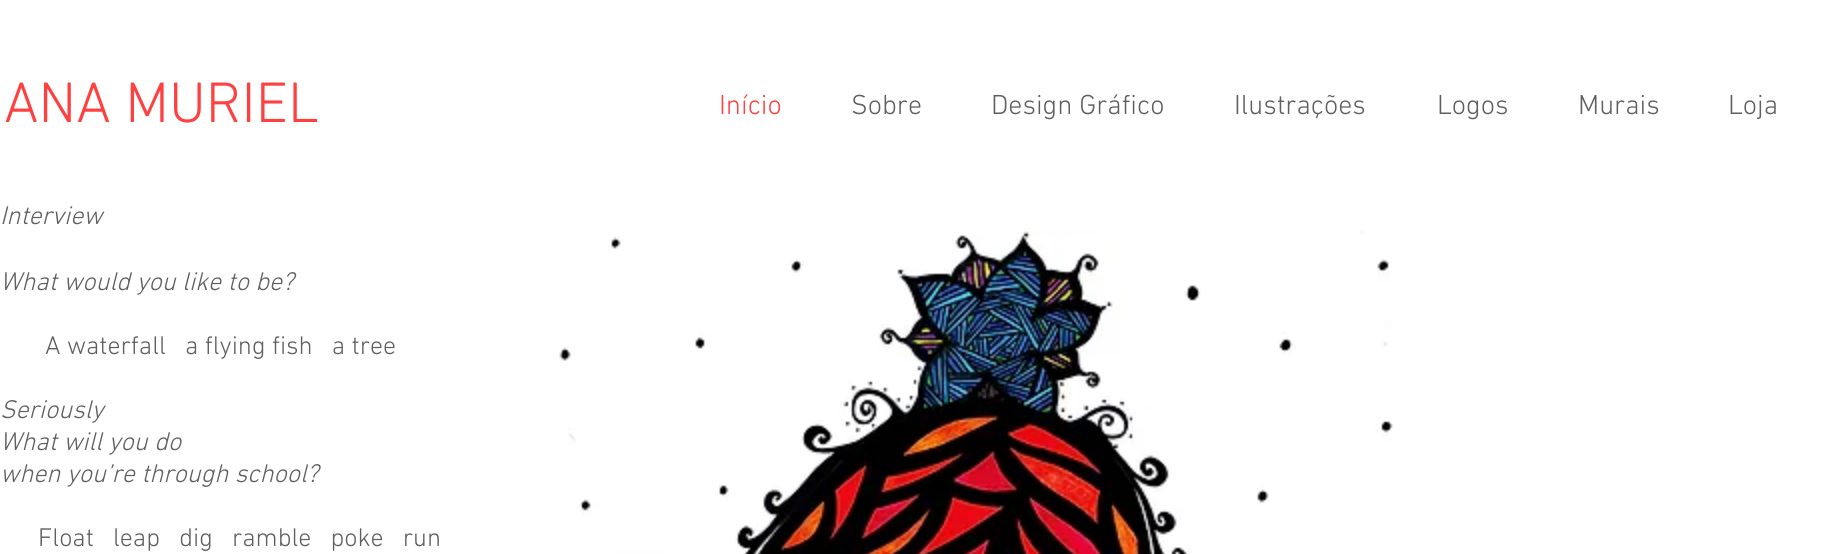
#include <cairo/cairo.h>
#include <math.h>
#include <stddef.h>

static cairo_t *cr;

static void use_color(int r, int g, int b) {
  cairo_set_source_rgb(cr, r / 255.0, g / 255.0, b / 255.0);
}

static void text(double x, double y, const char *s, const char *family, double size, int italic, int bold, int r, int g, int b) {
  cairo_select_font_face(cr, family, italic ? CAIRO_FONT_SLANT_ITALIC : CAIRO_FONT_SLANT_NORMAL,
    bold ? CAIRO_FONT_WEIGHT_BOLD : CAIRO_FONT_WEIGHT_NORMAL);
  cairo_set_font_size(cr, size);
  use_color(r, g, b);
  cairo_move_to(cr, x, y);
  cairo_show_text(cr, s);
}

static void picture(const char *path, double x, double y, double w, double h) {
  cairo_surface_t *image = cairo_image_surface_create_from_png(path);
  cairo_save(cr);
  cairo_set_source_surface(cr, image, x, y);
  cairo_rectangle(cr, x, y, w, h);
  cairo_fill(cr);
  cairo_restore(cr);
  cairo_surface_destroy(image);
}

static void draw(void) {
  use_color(255, 255, 255);
  cairo_paint(cr);
  picture("img_01.png", 559, 228, 834, 326);
  text(4, 122, "ANA MURIEL", "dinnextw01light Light", 58, 0, 0, 255, 64, 64);
  text(719, 114, "Início", "dinnextw01light Light", 28, 0, 0, 255, 64, 64);
  text(851, 114, "Sobre", "dinnextw01light Light", 28, 0, 0, 96, 94, 94);
  text(991, 114, "Design Gráfico", "dinnextw01light Light", 28, 0, 0, 96, 94, 94);
  text(1234, 114, "Ilustrações", "dinnextw01light Light", 28, 0, 0, 96, 94, 94);
  text(1437, 114, "Logos", "dinnextw01light Light", 28, 0, 0, 96, 94, 94);
  text(1578, 114, "Murais", "dinnextw01light Light", 28, 0, 0, 96, 94, 94);
  text(1728, 114, "Loja", "dinnextw01light Light", 28, 0, 0, 96, 94, 94);
  text(0, 224, "Interview", "dinnextw01light Light", 26, 1, 0, 96, 94, 94);
  text(0, 290, "What would you like to be?", "dinnextw01light Light", 26, 1, 0, 96, 94, 94);
  text(45, 354, "A waterfall   a flying fish   a tree", "dinnextw01light Light", 26, 0, 0, 96, 94, 94);
  text(0, 418, "Seriously", "dinnextw01light Light", 26, 1, 0, 96, 94, 94);
  text(0, 450, "What will you do", "dinnextw01light Light", 26, 1, 0, 96, 94, 94);
  text(0, 482, "when you’re through school?", "dinnextw01light Light", 26, 1, 0, 96, 94, 94);
  text(38, 546, "Float   leap   dig   ramble   poke   run", "dinnextw01light Light", 26, 0, 0, 96, 94, 94);
}

int main(void) {
  cairo_surface_t *surface = cairo_image_surface_create(CAIRO_FORMAT_RGB24, 1836, 554);
  cr = cairo_create(surface);
  cairo_font_options_t *options = cairo_font_options_create();
  cairo_font_options_set_hint_metrics(options, CAIRO_HINT_METRICS_OFF);
  cairo_font_options_set_hint_style(options, CAIRO_HINT_STYLE_NONE);
  cairo_set_font_options(cr, options);
  cairo_set_miter_limit(cr, 4);
  draw();
  cairo_surface_write_to_png(surface, "out.png");
  cairo_font_options_destroy(options);
  cairo_destroy(cr);
  cairo_surface_destroy(surface);
  return 0;
}
